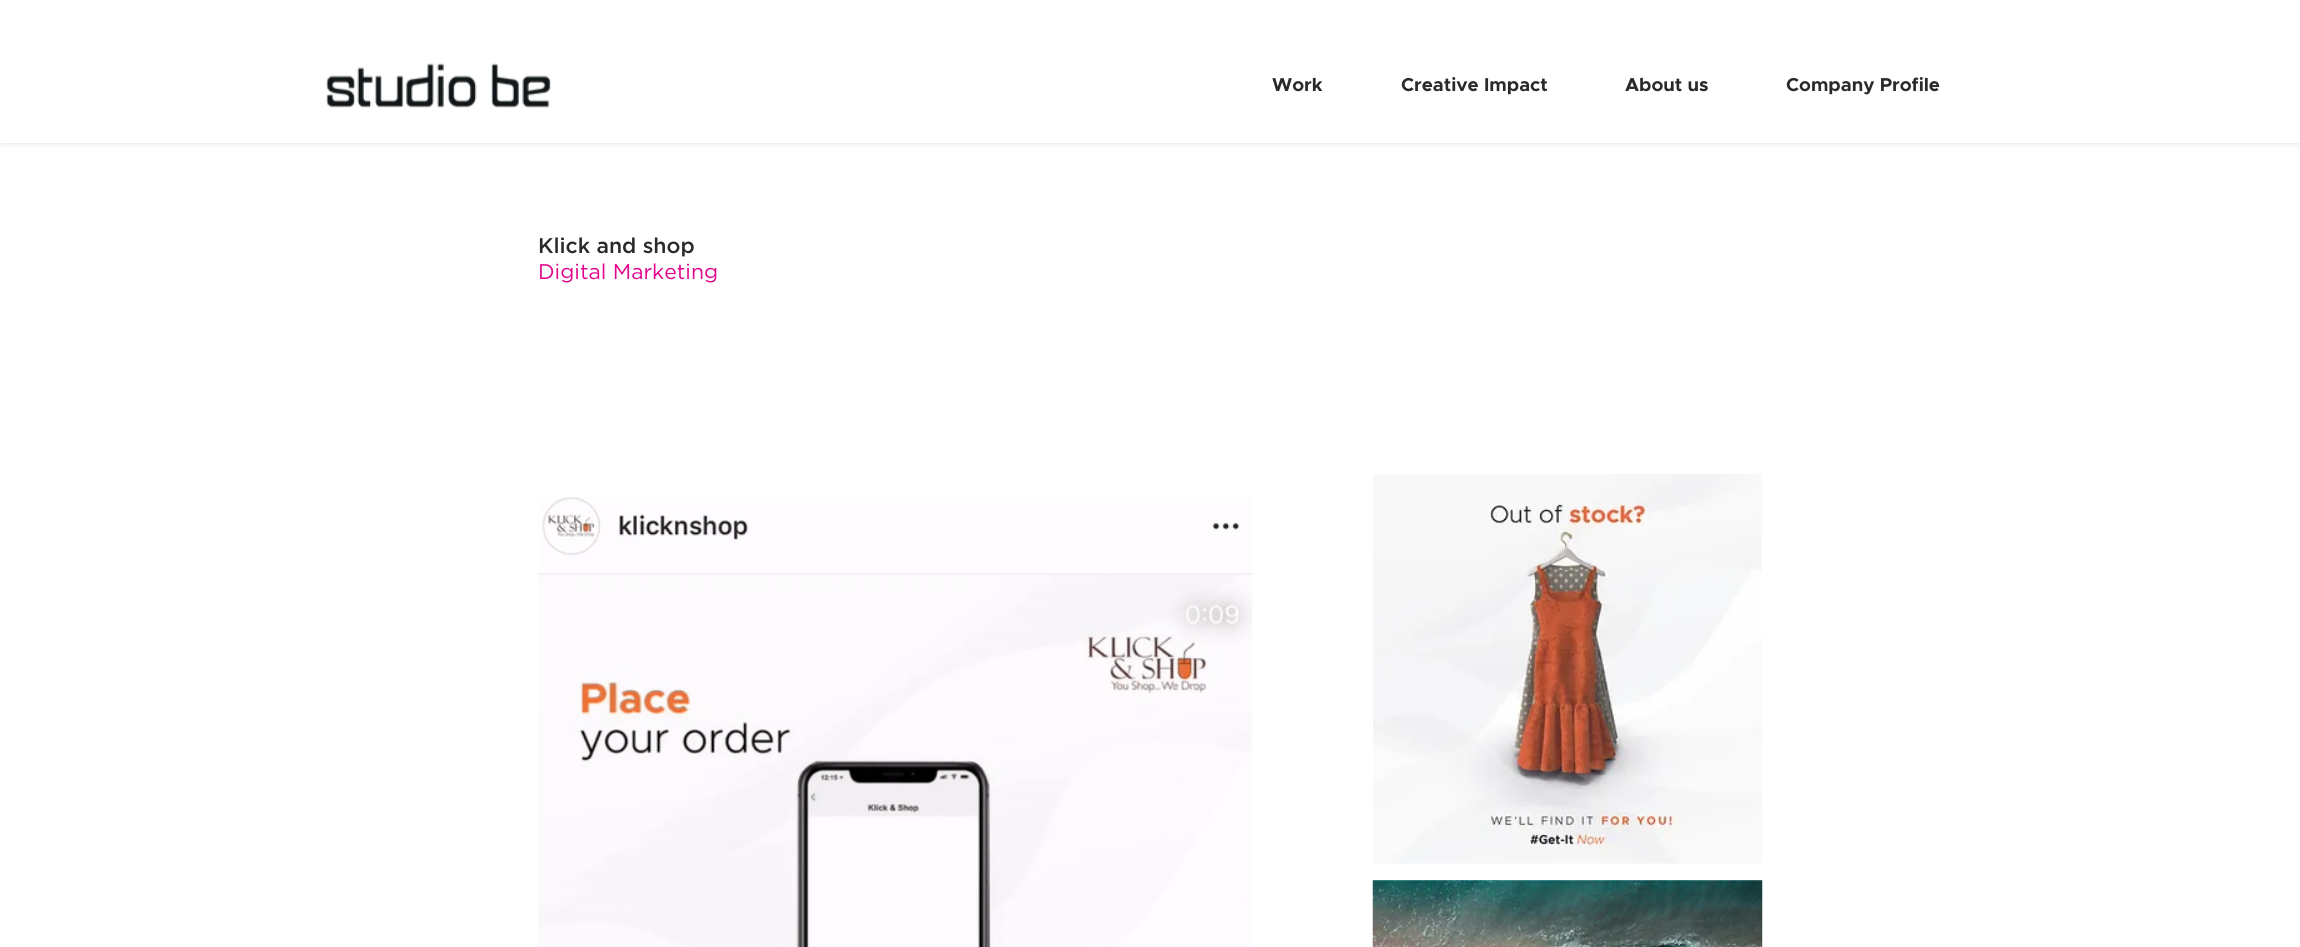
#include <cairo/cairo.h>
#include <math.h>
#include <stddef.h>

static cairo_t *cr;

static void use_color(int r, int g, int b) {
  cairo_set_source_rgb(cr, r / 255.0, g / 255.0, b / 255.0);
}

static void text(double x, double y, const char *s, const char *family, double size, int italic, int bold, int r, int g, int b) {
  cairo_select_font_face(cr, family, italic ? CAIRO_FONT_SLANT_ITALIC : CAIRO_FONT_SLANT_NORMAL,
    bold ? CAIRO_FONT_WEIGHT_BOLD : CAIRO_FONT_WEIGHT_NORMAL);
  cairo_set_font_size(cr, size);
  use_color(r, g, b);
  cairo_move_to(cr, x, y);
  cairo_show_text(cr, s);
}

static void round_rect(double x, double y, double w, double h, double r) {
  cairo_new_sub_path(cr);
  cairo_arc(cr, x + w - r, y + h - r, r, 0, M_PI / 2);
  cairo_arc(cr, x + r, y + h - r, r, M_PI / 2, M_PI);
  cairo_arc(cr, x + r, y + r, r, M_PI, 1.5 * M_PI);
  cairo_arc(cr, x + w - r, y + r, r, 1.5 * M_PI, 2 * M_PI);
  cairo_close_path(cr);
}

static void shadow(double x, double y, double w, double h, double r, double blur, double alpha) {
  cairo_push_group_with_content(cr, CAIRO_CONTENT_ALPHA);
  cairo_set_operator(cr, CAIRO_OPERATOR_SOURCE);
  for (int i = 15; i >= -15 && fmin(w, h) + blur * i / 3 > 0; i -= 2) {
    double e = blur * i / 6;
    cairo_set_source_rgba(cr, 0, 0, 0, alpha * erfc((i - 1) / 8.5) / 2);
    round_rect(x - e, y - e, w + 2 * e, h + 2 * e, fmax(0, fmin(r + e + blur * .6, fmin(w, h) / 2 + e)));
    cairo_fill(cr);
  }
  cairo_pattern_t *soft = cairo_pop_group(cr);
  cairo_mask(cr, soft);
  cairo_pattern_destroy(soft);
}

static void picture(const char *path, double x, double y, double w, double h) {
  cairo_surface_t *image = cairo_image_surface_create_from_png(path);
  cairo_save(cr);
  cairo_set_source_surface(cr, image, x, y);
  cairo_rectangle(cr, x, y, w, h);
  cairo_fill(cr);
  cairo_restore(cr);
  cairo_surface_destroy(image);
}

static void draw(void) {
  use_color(255, 255, 255);
  cairo_paint(cr);
  cairo_save(cr);
  cairo_set_fill_rule(cr, CAIRO_FILL_RULE_EVEN_ODD);
  cairo_new_path(cr);
  cairo_move_to(cr, 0, 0);
  cairo_line_to(cr, 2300, 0);
  cairo_line_to(cr, 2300, 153);
  cairo_line_to(cr, 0, 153);
  cairo_close_path(cr);
  cairo_move_to(cr, 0, 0);
  cairo_line_to(cr, 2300, 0);
  cairo_line_to(cr, 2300, 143);
  cairo_line_to(cr, 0, 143);
  cairo_close_path(cr);
  cairo_clip(cr);
  use_color(0, 0, 0);
  shadow(0, 0, 2300, 143, 0, 3, 0.14);
  cairo_restore(cr);
  cairo_set_source_rgba(cr, 1, 1, 1, 0.6);
  cairo_rectangle(cr, 0, 142, 2300, 1);
  cairo_fill(cr);
  picture("img_01.png", 326, 63, 225, 45);
  picture("img_02.png", 538, 497, 715, 450);
  picture("img_03.png", 1373, 474, 389, 390);
  picture("img_04.png", 1372, 880, 391, 67);
  text(1272, 91, "Work", "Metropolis", 18.75, 0, 1, 42, 42, 42);
  text(1401, 91, "Creative Impact", "Metropolis", 18.75, 0, 1, 42, 42, 42);
  text(1625, 91, "About us", "Metropolis", 18.75, 0, 1, 42, 42, 42);
  text(1786, 91, "Company Profile", "Metropolis", 18.75, 0, 1, 42, 42, 42);
  text(538, 253, "Klick and shop", "Gotham Medium", 21.25, 0, 0, 42, 42, 42);
  text(538, 279, "Digital Marketing", "Gotham", 21.25, 0, 0, 225, 5, 140);
}

int main(void) {
  cairo_surface_t *surface = cairo_image_surface_create(CAIRO_FORMAT_RGB24, 2300, 947);
  cr = cairo_create(surface);
  cairo_font_options_t *options = cairo_font_options_create();
  cairo_font_options_set_hint_metrics(options, CAIRO_HINT_METRICS_OFF);
  cairo_font_options_set_hint_style(options, CAIRO_HINT_STYLE_NONE);
  cairo_set_font_options(cr, options);
  cairo_set_miter_limit(cr, 4);
  draw();
  cairo_surface_write_to_png(surface, "out.png");
  cairo_font_options_destroy(options);
  cairo_destroy(cr);
  cairo_surface_destroy(surface);
  return 0;
}
